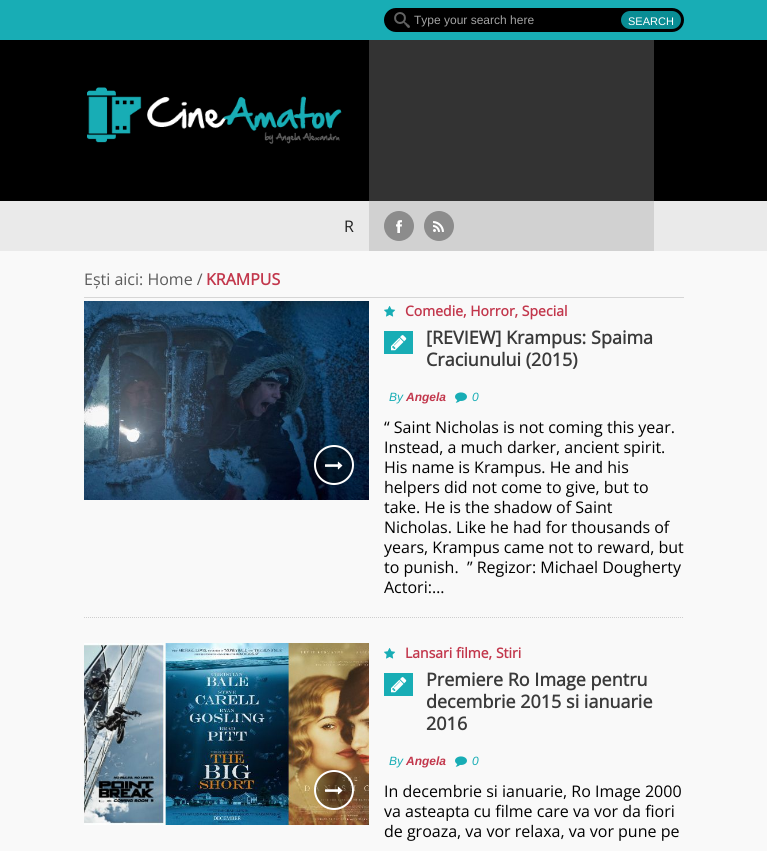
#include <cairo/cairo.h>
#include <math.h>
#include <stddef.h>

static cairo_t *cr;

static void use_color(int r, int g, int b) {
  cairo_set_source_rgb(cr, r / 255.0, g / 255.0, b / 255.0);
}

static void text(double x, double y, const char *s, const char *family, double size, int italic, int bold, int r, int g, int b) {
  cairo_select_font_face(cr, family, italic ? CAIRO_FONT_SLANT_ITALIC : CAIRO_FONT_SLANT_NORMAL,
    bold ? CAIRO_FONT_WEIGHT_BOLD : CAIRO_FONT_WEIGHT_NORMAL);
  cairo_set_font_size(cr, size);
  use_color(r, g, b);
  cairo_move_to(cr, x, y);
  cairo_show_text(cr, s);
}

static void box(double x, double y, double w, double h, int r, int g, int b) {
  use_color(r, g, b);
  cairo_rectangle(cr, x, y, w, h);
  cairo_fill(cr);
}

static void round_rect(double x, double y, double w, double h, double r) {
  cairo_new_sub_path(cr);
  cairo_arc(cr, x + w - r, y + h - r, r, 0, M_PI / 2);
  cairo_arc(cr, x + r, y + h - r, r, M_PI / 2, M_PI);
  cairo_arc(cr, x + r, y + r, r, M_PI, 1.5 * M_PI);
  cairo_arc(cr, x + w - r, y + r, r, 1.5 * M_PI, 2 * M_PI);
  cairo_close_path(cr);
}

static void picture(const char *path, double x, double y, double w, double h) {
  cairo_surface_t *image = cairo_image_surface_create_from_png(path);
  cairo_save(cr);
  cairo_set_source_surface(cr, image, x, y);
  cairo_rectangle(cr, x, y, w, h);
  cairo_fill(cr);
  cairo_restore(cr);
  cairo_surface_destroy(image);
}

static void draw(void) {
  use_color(249, 249, 249);
  cairo_paint(cr);
  box(0, 0, 767, 40, 24, 173, 181);
  use_color(0, 0, 0);
  round_rect(384, 8, 300, 24, 12);
  cairo_fill(cr);
  picture("img_01.png", 394, 12, 16, 16);
  use_color(9, 141, 148);
  round_rect(621, 11, 60, 18, 9);
  cairo_fill(cr);
  box(0, 40, 767, 161, 0, 0, 0);
  picture("img_02.png", 87, 87, 255, 57);
  box(369, 40, 285, 161, 51, 51, 51);
  box(0, 201, 767, 50, 234, 234, 234);
  box(369, 201, 285, 50, 209, 209, 209);
  use_color(140, 140, 140);
  cairo_arc(cr, 399, 226, 15, 0, 2 * M_PI);
  cairo_fill(cr);
  picture("img_03.png", 396, 220, 6, 13);
  cairo_arc(cr, 439, 226, 15, 0, 2 * M_PI);
  cairo_fill(cr);
  picture("img_04.png", 433, 221, 11, 11);
  box(84, 297, 600, 1, 214, 214, 214);
  cairo_new_path(cr);
  cairo_move_to(cr, 84, 617.5);
  cairo_line_to(cr, 684, 617.5);
  use_color(206, 206, 206);
  cairo_set_line_width(cr, 1);
  cairo_set_dash(cr, (double[]){1, 1}, 2, 0);
  cairo_stroke(cr);
  picture("img_05.png", 84, 301, 285, 199);
  cairo_set_source_rgba(cr, 0, 0, 0, 0.37);
  cairo_arc(cr, 334, 465, 19, 0, 2 * M_PI);
  cairo_fill_preserve(cr);
  use_color(255, 255, 255);
  cairo_set_line_width(cr, 2);
  cairo_set_dash(cr, NULL, 0, 0);
  cairo_stroke(cr);
  picture("img_06.png", 325, 461, 18, 9);
  picture("img_07.png", 384, 306, 12, 11);
  box(384, 331, 29, 23, 24, 173, 181);
  picture("img_08.png", 391, 335, 16, 16);
  picture("img_09.png", 455, 392, 12, 11);
  picture("img_10.png", 84, 643, 285, 182);
  cairo_set_source_rgba(cr, 0, 0, 0, 0.37);
  cairo_arc(cr, 334, 790, 19, 0, 2 * M_PI);
  cairo_fill_preserve(cr);
  use_color(255, 255, 255);
  cairo_stroke(cr);
  picture("img_11.png", 325, 786, 18, 9);
  picture("img_07.png", 384, 648, 12, 11);
  box(384, 673, 29, 23, 24, 173, 181);
  picture("img_08.png", 391, 677, 16, 16);
  picture("img_09.png", 455, 756, 12, 11);
  text(414, 24, "Type your search here", "Liberation Sans", 12, 0, 0, 163, 163, 163);
  text(628, 25, "SEARCH", "Liberation Sans", 11, 0, 0, 255, 255, 255);
  text(344, 232, "R", "Open Sans", 16, 0, 0, 34, 34, 34);
  text(84, 285, "Ești aici: Home /", "Open Sans", 16, 0, 0, 91, 91, 91);
  text(206, 285, "KRAMPUS", "Open Sans", 16, 0, 1, 194, 55, 76);
  text(405, 316, "Comedie, Horror, Special", "Open Sans", 14, 0, 1, 194, 55, 76);
  text(426, 344, "[REVIEW] Krampus: Spaima", "Open Sans", 18, 0, 1, 58, 58, 58);
  text(426, 366, "Craciunului (2015)", "Open Sans", 18, 0, 1, 58, 58, 58);
  text(389, 401, "By", "Liberation Sans", 12, 1, 0, 24, 173, 181);
  text(406, 401, "Angela", "Liberation Sans", 12, 1, 1, 194, 55, 76);
  text(472, 401, "0", "Liberation Sans", 12, 1, 0, 24, 173, 181);
  text(384, 433, "“ Saint Nicholas is not coming this year.", "Open Sans", 16, 0, 0, 0, 0, 0);
  text(384, 453, "Instead, a much darker, ancient spirit.", "Open Sans", 16, 0, 0, 0, 0, 0);
  text(384, 473, "His name is Krampus. He and his", "Open Sans", 16, 0, 0, 0, 0, 0);
  text(384, 493, "helpers did not come to give, but to", "Open Sans", 16, 0, 0, 0, 0, 0);
  text(384, 513, "take. He is the shadow of Saint", "Open Sans", 16, 0, 0, 0, 0, 0);
  text(384, 533, "Nicholas. Like he had for thousands of", "Open Sans", 16, 0, 0, 0, 0, 0);
  text(384, 553, "years, Krampus came not to reward, but", "Open Sans", 16, 0, 0, 0, 0, 0);
  text(384, 573, "to punish.  ” Regizor: Michael Dougherty", "Open Sans", 16, 0, 0, 0, 0, 0);
  text(384, 593, "Actori:…", "Open Sans", 16, 0, 0, 0, 0, 0);
  text(405, 658, "Lansari filme, Stiri", "Open Sans", 14, 0, 1, 194, 55, 76);
  text(426, 686, "Premiere Ro Image pentru", "Open Sans", 18, 0, 1, 58, 58, 58);
  text(426, 708, "decembrie 2015 si ianuarie", "Open Sans", 18, 0, 1, 58, 58, 58);
  text(426, 730, "2016", "Open Sans", 18, 0, 1, 58, 58, 58);
  text(389, 765, "By", "Liberation Sans", 12, 1, 0, 24, 173, 181);
  text(406, 765, "Angela", "Liberation Sans", 12, 1, 1, 194, 55, 76);
  text(472, 765, "0", "Liberation Sans", 12, 1, 0, 24, 173, 181);
  text(384, 797, "In decembrie si ianuarie, Ro Image 2000", "Open Sans", 16, 0, 0, 0, 0, 0);
  text(384, 817, "va asteapta cu filme care va vor da fiori", "Open Sans", 16, 0, 0, 0, 0, 0);
  text(384, 837, "de groaza, va vor relaxa, va vor pune pe", "Open Sans", 16, 0, 0, 0, 0, 0);
}

int main(void) {
  cairo_surface_t *surface = cairo_image_surface_create(CAIRO_FORMAT_RGB24, 767, 851);
  cr = cairo_create(surface);
  cairo_font_options_t *options = cairo_font_options_create();
  cairo_font_options_set_hint_metrics(options, CAIRO_HINT_METRICS_OFF);
  cairo_font_options_set_hint_style(options, CAIRO_HINT_STYLE_NONE);
  cairo_set_font_options(cr, options);
  cairo_set_miter_limit(cr, 4);
  draw();
  cairo_surface_write_to_png(surface, "out.png");
  cairo_font_options_destroy(options);
  cairo_destroy(cr);
  cairo_surface_destroy(surface);
  return 0;
}
